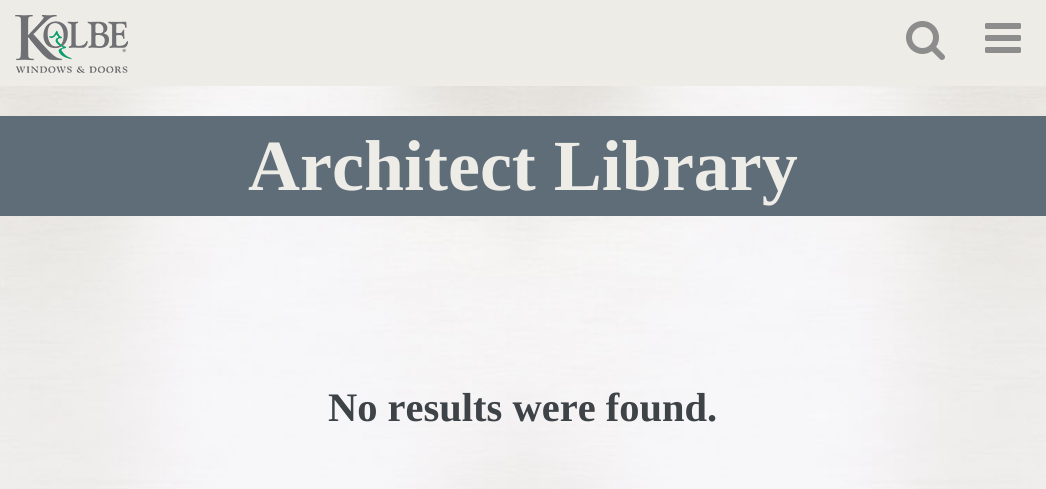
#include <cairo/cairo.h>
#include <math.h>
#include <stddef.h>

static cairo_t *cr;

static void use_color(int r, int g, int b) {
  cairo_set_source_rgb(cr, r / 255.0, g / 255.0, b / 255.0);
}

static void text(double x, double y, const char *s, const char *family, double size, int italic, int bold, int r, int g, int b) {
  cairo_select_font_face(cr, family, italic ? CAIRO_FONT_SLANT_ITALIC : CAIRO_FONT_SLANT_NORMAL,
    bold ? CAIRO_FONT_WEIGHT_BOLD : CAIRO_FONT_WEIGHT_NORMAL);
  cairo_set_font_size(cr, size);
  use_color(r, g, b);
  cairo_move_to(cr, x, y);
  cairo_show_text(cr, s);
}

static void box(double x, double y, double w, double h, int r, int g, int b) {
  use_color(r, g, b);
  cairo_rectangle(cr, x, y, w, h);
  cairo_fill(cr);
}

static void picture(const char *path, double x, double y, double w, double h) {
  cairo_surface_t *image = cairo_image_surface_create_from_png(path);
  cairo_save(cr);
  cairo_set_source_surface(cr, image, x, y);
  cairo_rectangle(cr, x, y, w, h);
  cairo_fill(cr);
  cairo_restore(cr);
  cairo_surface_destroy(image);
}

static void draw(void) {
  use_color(255, 255, 255);
  cairo_paint(cr);
  picture("img_01.png", 0, 86, 1046, 403);
  box(0, 0, 1046, 86, 237, 236, 230);
  picture("img_02.png", 15, 15, 113, 58);
  picture("img_03.png", 906, 21, 39, 39);
  picture("img_04.png", 985, 23, 36, 30);
  box(0, 116, 1046, 100, 95, 109, 121);
  text(248, 190, "Architect Library", "Liberation Serif", 72, 0, 1, 237, 236, 230);
  text(328, 421, "No results were found.", "Liberation Serif", 40.5, 0, 1, 62, 67, 72);
}

int main(void) {
  cairo_surface_t *surface = cairo_image_surface_create(CAIRO_FORMAT_RGB24, 1046, 489);
  cr = cairo_create(surface);
  cairo_font_options_t *options = cairo_font_options_create();
  cairo_font_options_set_hint_metrics(options, CAIRO_HINT_METRICS_OFF);
  cairo_font_options_set_hint_style(options, CAIRO_HINT_STYLE_NONE);
  cairo_set_font_options(cr, options);
  cairo_set_miter_limit(cr, 4);
  draw();
  cairo_surface_write_to_png(surface, "out.png");
  cairo_font_options_destroy(options);
  cairo_destroy(cr);
  cairo_surface_destroy(surface);
  return 0;
}
